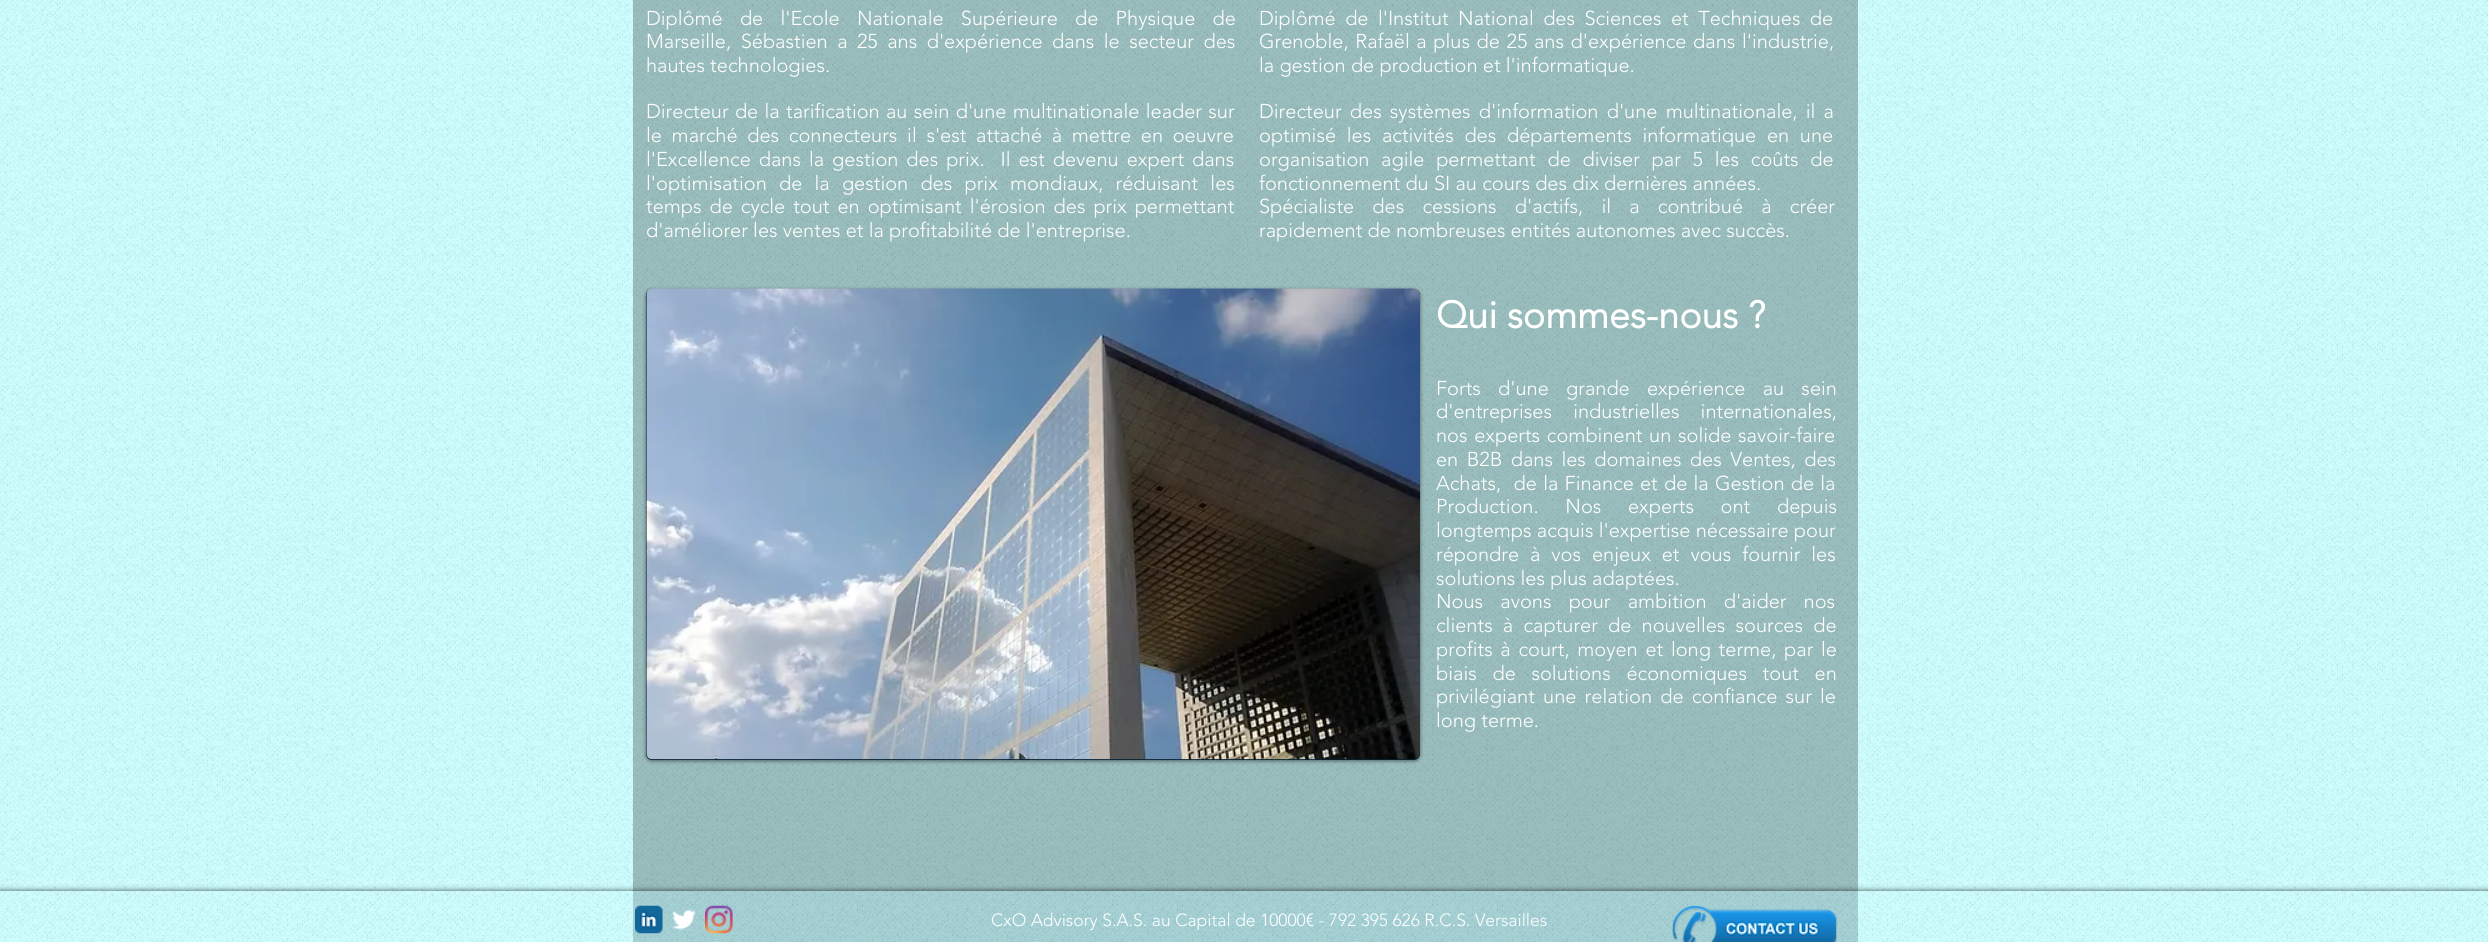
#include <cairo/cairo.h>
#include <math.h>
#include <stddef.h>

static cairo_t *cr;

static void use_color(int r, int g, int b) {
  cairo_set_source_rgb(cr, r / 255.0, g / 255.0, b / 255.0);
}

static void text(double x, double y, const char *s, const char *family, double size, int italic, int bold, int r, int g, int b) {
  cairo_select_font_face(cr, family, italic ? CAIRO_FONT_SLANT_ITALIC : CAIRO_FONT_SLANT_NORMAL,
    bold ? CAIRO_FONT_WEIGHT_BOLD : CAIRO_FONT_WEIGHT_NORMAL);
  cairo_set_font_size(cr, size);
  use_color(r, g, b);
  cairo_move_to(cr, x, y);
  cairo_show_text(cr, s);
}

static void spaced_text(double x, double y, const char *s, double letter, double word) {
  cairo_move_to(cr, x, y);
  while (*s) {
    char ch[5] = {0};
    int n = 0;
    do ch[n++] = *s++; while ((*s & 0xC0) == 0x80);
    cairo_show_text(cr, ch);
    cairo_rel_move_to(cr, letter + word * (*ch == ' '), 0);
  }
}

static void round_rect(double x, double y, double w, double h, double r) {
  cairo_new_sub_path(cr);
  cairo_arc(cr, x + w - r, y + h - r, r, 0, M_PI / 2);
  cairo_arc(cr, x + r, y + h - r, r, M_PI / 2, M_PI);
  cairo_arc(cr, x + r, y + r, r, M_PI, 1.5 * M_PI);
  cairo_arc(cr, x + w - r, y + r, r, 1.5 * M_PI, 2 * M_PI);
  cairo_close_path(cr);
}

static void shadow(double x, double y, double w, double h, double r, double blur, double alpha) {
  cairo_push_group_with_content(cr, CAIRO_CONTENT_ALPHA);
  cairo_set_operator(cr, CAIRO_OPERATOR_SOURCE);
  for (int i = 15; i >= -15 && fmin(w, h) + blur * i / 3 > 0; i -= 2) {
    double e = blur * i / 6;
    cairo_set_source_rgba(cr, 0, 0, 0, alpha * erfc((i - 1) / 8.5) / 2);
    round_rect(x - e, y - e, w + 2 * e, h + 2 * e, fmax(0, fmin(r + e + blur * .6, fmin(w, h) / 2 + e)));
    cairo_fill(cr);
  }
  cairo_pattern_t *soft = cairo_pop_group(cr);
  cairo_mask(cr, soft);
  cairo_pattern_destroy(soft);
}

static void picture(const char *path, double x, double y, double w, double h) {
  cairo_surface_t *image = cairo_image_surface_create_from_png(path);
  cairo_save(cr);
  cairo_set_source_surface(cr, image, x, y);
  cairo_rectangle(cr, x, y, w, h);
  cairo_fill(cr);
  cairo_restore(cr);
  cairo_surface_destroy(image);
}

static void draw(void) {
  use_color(207, 255, 255);
  cairo_paint(cr);
  picture("img_01.png", 0, 0, 2488, 942);
  cairo_set_source_rgba(cr, 0, 0, 0, 0.25);
  cairo_rectangle(cr, 633, 0, 1225, 891);
  cairo_fill(cr);
  use_color(0, 0, 0);
  shadow(646, 290, 774, 471, 6, 2, 0.5);
  use_color(6, 33, 52);
  round_rect(646, 289, 774, 471, 6);
  cairo_fill(cr);
  picture("img_02.png", 646, 288, 774, 472);
  cairo_save(cr);
  cairo_set_fill_rule(cr, CAIRO_FILL_RULE_EVEN_ODD);
  cairo_new_path(cr);
  cairo_move_to(cr, 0, 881);
  cairo_line_to(cr, 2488, 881);
  cairo_line_to(cr, 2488, 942);
  cairo_line_to(cr, 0, 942);
  cairo_close_path(cr);
  cairo_move_to(cr, 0, 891);
  cairo_line_to(cr, 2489, 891);
  cairo_line_to(cr, 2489, 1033);
  cairo_line_to(cr, 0, 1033);
  cairo_close_path(cr);
  cairo_clip(cr);
  use_color(0, 0, 0);
  shadow(0, 891, 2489, 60, 0, 3, 0.7);
  cairo_restore(cr);
  cairo_set_source_rgba(cr, 0.024, 0.129, 0.204, 0.2);
  cairo_rectangle(cr, 633, 891, 1225, 51);
  cairo_fill(cr);
  picture("img_03.png", 635, 905, 28, 29);
  picture("img_04.png", 672, 909, 24, 21);
  picture("img_05.png", 705, 905, 28, 29);
  picture("img_06.png", 1672, 905, 165, 37);
  cairo_select_font_face(cr, "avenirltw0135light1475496 Light", CAIRO_FONT_SLANT_NORMAL, CAIRO_FONT_WEIGHT_NORMAL);
  cairo_set_font_size(cr, 20);
  use_color(255, 255, 255);
  spaced_text(646, 25, "Diplômé de l'Ecole Nationale Supérieure de Physique de", 0, 12);
  spaced_text(646, 48, "Marseille, Sébastien a 25 ans d'expérience dans le secteur des", 0, 4.25);
  text(646, 72, "hautes technologies.", "avenirltw0135light1475496 Light", 20, 0, 0, 255, 255, 255);
  spaced_text(646, 118, "Directeur de la tarification au sein d'une multinationale leader sur", 0, 1.1);
  spaced_text(646, 142, "le marché des connecteurs il s'est attaché à mettre en oeuvre", 0, 4.5);
  spaced_text(646, 166, "l'Excellence dans la gestion des prix.  Il est devenu expert dans", 0, 2.75);
  spaced_text(646, 190, "l'optimisation de la gestion des prix mondiaux, réduisant les", 0, 7);
  spaced_text(646, 213, "temps de cycle tout en optimisant l'érosion des prix permettant", 0, 2.75);
  text(646, 237, "d'améliorer les ventes et la profitabilité de l'entreprise.", "avenirltw0135light1475496 Light", 20, 0, 0, 255, 255, 255);
  spaced_text(1259, 25, "Diplômé de l'Institut National des Sciences et Techniques de", 0, 4.25);
  spaced_text(1259, 48, "Grenoble, Rafaël a plus de 25 ans d'expérience dans l'industrie,", 0, 1.4);
  text(1259, 72, "la gestion de production et l'informatique.", "avenirltw0135light1475496 Light", 20, 0, 0, 255, 255, 255);
  spaced_text(1259, 118, "Directeur des systèmes d'information d'une multinationale, il a", 0, 3);
  spaced_text(1259, 142, "optimisé les activités des départements informatique en une", 0, 5.5);
  spaced_text(1259, 166, "organisation agile permettant de diviser par 5 les coûts de", 0, 6.5);
  text(1259, 190, "fonctionnement du SI au cours des dix dernières années.", "avenirltw0135light1475496 Light", 20, 0, 0, 255, 255, 255);
  spaced_text(1259, 213, "Spécialiste des cessions d'actifs, il a contribué à créer", 0, 13);
  text(1259, 237, "rapidement de nombreuses entités autonomes avec succès.", "avenirltw0135light1475496 Light", 20, 0, 0, 255, 255, 255);
  text(1436, 328, "Qui sommes-nous ?", "avenirltw0135light1475496", 37.5, 0, 1, 255, 255, 255);
  cairo_select_font_face(cr, "avenirltw0135light1475496 Light", CAIRO_FONT_SLANT_NORMAL, CAIRO_FONT_WEIGHT_NORMAL);
  cairo_set_font_size(cr, 20);
  spaced_text(1436, 395, "Forts d'une grande expérience au sein", 0, 12);
  spaced_text(1436, 418, "d'entreprises industrielles internationales,", 0, 16);
  spaced_text(1436, 442, "nos experts combinent un solide savoir-faire", 0, 1.5);
  spaced_text(1436, 466, "en B2B dans les domaines des Ventes, des", 0, 3.25);
  spaced_text(1436, 490, "Achats,  de la Finance et de la Gestion de la", 0, 1);
  spaced_text(1436, 513, "Production. Nos experts ont depuis", 0, 21.5);
  text(1436, 537, "longtemps acquis l'expertise nécessaire pour", "avenirltw0135light1475496 Light", 20, 0, 0, 255, 255, 255);
  spaced_text(1436, 561, "répondre à vos enjeux et vous fournir les", 0, 5.75);
  text(1436, 585, "solutions les plus adaptées.", "avenirltw0135light1475496 Light", 20, 0, 0, 255, 255, 255);
  spaced_text(1436, 608, "Nous avons pour ambition d'aider nos", 0, 12);
  spaced_text(1436, 632, "clients à capturer de nouvelles sources de", 0, 5);
  spaced_text(1436, 656, "profits à court, moyen et long terme, par le", 0, 2.5);
  spaced_text(1436, 680, "biais de solutions économiques tout en", 0, 10.5);
  spaced_text(1436, 703, "privilégiant une relation de confiance sur le", 0, 3);
  text(1436, 727, "long terme.", "avenirltw0135light1475496 Light", 20, 0, 0, 255, 255, 255);
  text(991, 926, "CxO Advisory S.A.S. au Capital de 10000€ - 792 395 626 R.C.S. Versailles", "avenirltw0135light1475496 Light", 17.5, 0, 0, 255, 255, 255);
}

int main(void) {
  cairo_surface_t *surface = cairo_image_surface_create(CAIRO_FORMAT_RGB24, 2488, 942);
  cr = cairo_create(surface);
  cairo_font_options_t *options = cairo_font_options_create();
  cairo_font_options_set_hint_metrics(options, CAIRO_HINT_METRICS_OFF);
  cairo_font_options_set_hint_style(options, CAIRO_HINT_STYLE_NONE);
  cairo_set_font_options(cr, options);
  cairo_set_miter_limit(cr, 4);
  draw();
  cairo_surface_write_to_png(surface, "out.png");
  cairo_font_options_destroy(options);
  cairo_destroy(cr);
  cairo_surface_destroy(surface);
  return 0;
}
